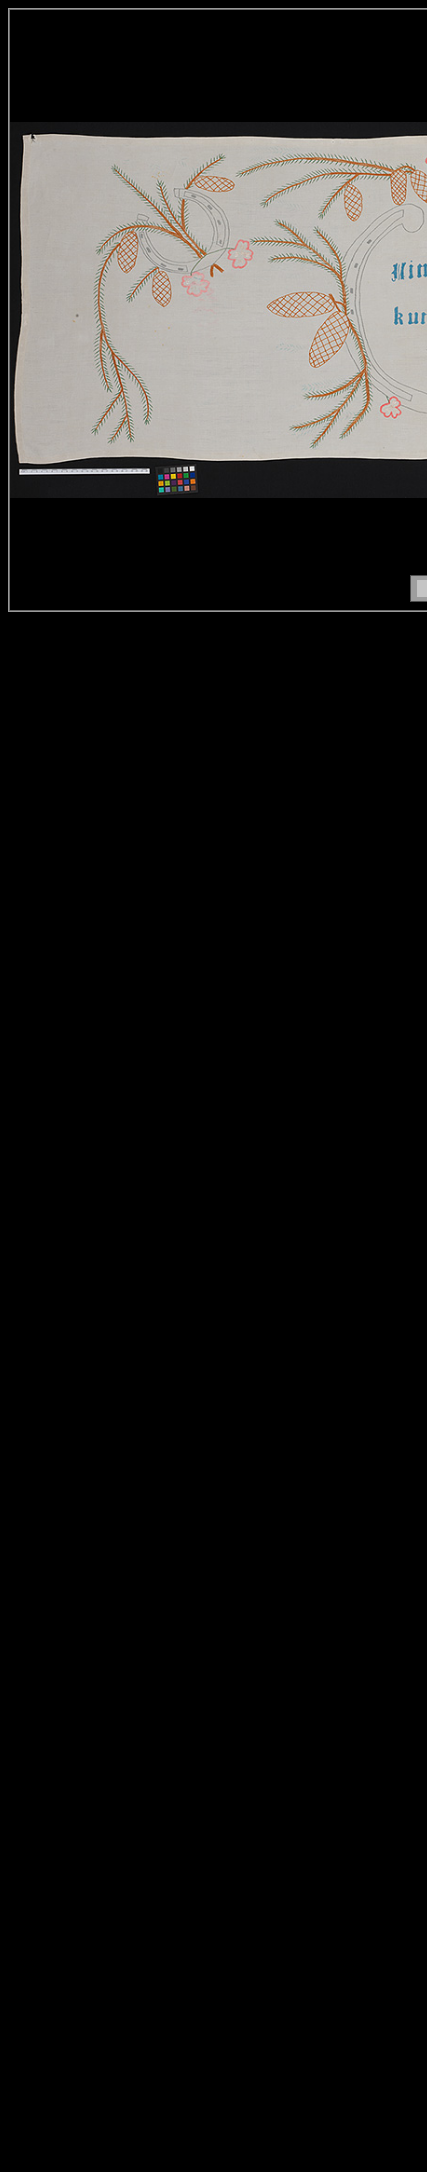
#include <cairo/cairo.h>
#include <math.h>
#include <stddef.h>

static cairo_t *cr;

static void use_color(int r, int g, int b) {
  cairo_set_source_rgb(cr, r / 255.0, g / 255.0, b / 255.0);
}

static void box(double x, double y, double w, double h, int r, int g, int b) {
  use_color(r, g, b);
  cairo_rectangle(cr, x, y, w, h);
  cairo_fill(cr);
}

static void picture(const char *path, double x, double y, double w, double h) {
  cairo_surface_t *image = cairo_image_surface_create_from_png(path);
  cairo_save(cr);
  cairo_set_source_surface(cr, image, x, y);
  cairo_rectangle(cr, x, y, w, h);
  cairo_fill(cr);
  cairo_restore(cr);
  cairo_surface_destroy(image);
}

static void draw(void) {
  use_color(0, 0, 0);
  cairo_paint(cr);
  box(8, 8, 419, 604, 153, 153, 153);
  use_color(0, 0, 0);
  cairo_rectangle(cr, 9.5, 9.5, 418, 601);
  cairo_fill_preserve(cr);
  use_color(105, 105, 105);
  cairo_set_line_width(cr, 1);
  cairo_stroke(cr);
  picture("img_01.png", 10, 122, 417, 376);
  use_color(158, 158, 158);
  cairo_rectangle(cr, 410.5, 575.5, 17, 26);
  cairo_fill_preserve(cr);
  use_color(79, 79, 79);
  cairo_stroke(cr);
  box(417, 580, 10, 17, 197, 197, 197);
}

int main(void) {
  cairo_surface_t *surface = cairo_image_surface_create(CAIRO_FORMAT_RGB24, 427, 2172);
  cr = cairo_create(surface);
  cairo_font_options_t *options = cairo_font_options_create();
  cairo_font_options_set_hint_metrics(options, CAIRO_HINT_METRICS_OFF);
  cairo_font_options_set_hint_style(options, CAIRO_HINT_STYLE_NONE);
  cairo_set_font_options(cr, options);
  cairo_set_miter_limit(cr, 4);
  draw();
  cairo_surface_write_to_png(surface, "out.png");
  cairo_font_options_destroy(options);
  cairo_destroy(cr);
  cairo_surface_destroy(surface);
  return 0;
}
